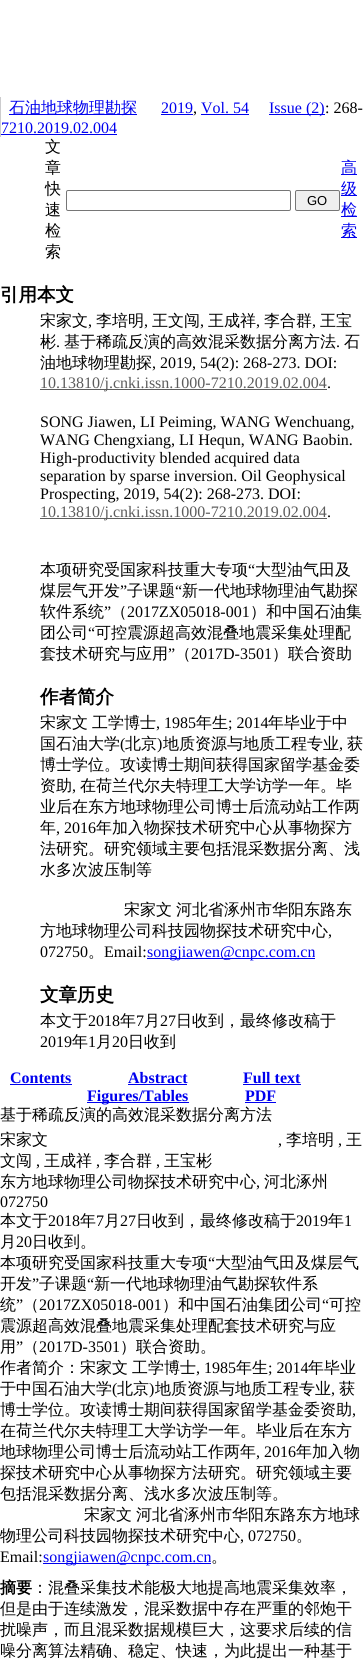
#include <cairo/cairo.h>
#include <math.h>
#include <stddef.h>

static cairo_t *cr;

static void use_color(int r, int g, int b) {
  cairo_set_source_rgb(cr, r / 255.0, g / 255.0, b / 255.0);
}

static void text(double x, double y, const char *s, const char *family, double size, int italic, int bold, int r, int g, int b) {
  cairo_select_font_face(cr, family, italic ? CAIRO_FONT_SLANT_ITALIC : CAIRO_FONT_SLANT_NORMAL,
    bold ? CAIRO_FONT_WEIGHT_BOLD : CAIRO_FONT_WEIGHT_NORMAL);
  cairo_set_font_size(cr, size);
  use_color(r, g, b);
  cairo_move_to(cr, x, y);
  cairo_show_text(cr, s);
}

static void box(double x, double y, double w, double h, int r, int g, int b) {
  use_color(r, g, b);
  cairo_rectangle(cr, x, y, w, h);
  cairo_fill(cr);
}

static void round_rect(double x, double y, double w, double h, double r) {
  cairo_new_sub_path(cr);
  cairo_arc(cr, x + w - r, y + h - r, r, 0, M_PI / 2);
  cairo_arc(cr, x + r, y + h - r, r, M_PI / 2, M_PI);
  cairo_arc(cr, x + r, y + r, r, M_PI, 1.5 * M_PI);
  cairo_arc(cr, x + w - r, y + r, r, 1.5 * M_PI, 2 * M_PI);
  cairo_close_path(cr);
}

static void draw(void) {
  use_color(255, 255, 255);
  cairo_paint(cr);
  box(0, 97, 1, 40, 204, 204, 206);
  box(9, 114, 128, 1, 0, 0, 238);
  box(161, 114, 32, 1, 0, 0, 238);
  box(201, 114, 48, 1, 0, 0, 238);
  box(269, 114, 56, 1, 0, 0, 238);
  box(1, 134, 116, 1, 0, 0, 238);
  round_rect(66.5, 190.5, 224, 20, 1.5);
  use_color(118, 118, 118);
  cairo_set_line_width(cr, 1);
  cairo_stroke(cr);
  use_color(239, 239, 239);
  round_rect(295.5, 190.5, 44, 20, 1.5);
  cairo_fill_preserve(cr);
  use_color(118, 118, 118);
  cairo_stroke(cr);
  box(341, 174, 16, 1, 0, 0, 238);
  box(341, 195, 16, 1, 0, 0, 238);
  box(341, 216, 16, 1, 0, 0, 238);
  box(341, 237, 16, 1, 0, 0, 238);
  box(40, 389, 287, 1, 92, 92, 92);
  box(40, 518, 287, 1, 92, 92, 92);
  box(147, 958, 168, 1, 0, 0, 238);
  box(10, 1084, 62, 1, 0, 0, 238);
  box(128, 1084, 59, 1, 0, 0, 238);
  box(243, 1084, 58, 1, 0, 0, 238);
  box(87, 1102, 102, 1, 0, 0, 238);
  box(245, 1102, 31, 1, 0, 0, 238);
  box(43, 1563, 168, 1, 0, 0, 238);
  text(9, 113, "石油地球物理勘探", "WenQuanYi Zen Hei Medium", 16, 0, 0, 0, 0, 238);
  text(161, 113, "2019", "Liberation Serif", 16, 0, 0, 0, 0, 238);
  text(193, 113, ",", "Liberation Serif", 16, 0, 0, 0, 0, 0);
  text(201, 113, "Vol. 54", "Liberation Serif", 16, 0, 0, 0, 0, 238);
  text(269, 113, "Issue (2)", "Liberation Serif", 16, 0, 0, 0, 0, 238);
  text(325, 113, ": 268-", "Liberation Serif", 16, 0, 0, 0, 0, 0);
  text(1, 133, "7210.2019.02.004", "Liberation Serif", 16, 0, 0, 0, 0, 238);
  text(45, 152, "文", "WenQuanYi Zen Hei Medium", 16, 0, 0, 0, 0, 0);
  text(45, 173, "章", "WenQuanYi Zen Hei Medium", 16, 0, 0, 0, 0, 0);
  text(45, 194, "快", "WenQuanYi Zen Hei Medium", 16, 0, 0, 0, 0, 0);
  text(45, 215, "速", "WenQuanYi Zen Hei Medium", 16, 0, 0, 0, 0, 0);
  text(45, 236, "检", "WenQuanYi Zen Hei Medium", 16, 0, 0, 0, 0, 0);
  text(45, 257, "索", "WenQuanYi Zen Hei Medium", 16, 0, 0, 0, 0, 0);
  text(307, 205, "GO", "Liberation Sans", 13, 0, 0, 0, 0, 0);
  text(341, 173, "高", "WenQuanYi Zen Hei Medium", 16, 0, 0, 0, 0, 238);
  text(341, 194, "级", "WenQuanYi Zen Hei Medium", 16, 0, 0, 0, 0, 238);
  text(341, 215, "检", "WenQuanYi Zen Hei Medium", 16, 0, 0, 0, 0, 238);
  text(341, 236, "索", "WenQuanYi Zen Hei Medium", 16, 0, 0, 0, 0, 238);
  text(0, 301, "引用本文", "WenQuanYi Zen Hei", 18.5, 0, 1, 0, 0, 0);
  text(40, 326, "宋家文", "WenQuanYi Zen Hei Medium", 16, 0, 0, 0, 0, 0);
  text(88, 326, ",", "Liberation Serif", 16, 0, 0, 0, 0, 0);
  text(96, 326, "李培明", "WenQuanYi Zen Hei Medium", 16, 0, 0, 0, 0, 0);
  text(144, 326, ",", "Liberation Serif", 16, 0, 0, 0, 0, 0);
  text(152, 326, "王文闯", "WenQuanYi Zen Hei Medium", 16, 0, 0, 0, 0, 0);
  text(200, 326, ",", "Liberation Serif", 16, 0, 0, 0, 0, 0);
  text(208, 326, "王成祥", "WenQuanYi Zen Hei Medium", 16, 0, 0, 0, 0, 0);
  text(256, 326, ",", "Liberation Serif", 16, 0, 0, 0, 0, 0);
  text(264, 326, "李合群", "WenQuanYi Zen Hei Medium", 16, 0, 0, 0, 0, 0);
  text(312, 326, ",", "Liberation Serif", 16, 0, 0, 0, 0, 0);
  text(320, 326, "王宝", "WenQuanYi Zen Hei Medium", 16, 0, 0, 0, 0, 0);
  text(40, 347, "彬", "WenQuanYi Zen Hei Medium", 16, 0, 0, 0, 0, 0);
  text(56, 347, ".", "Liberation Serif", 16, 0, 0, 0, 0, 0);
  text(64, 347, "基于稀疏反演的高效混采数据分离方法", "WenQuanYi Zen Hei Medium", 16, 0, 0, 0, 0, 0);
  text(336, 347, ".", "Liberation Serif", 16, 0, 0, 0, 0, 0);
  text(344, 347, "石", "WenQuanYi Zen Hei Medium", 16, 0, 0, 0, 0, 0);
  text(40, 368, "油地球物理勘探", "WenQuanYi Zen Hei Medium", 16, 0, 0, 0, 0, 0);
  text(152, 368, ", 2019, 54(2): 268-273. DOI:", "Liberation Serif", 16, 0, 0, 0, 0, 0);
  text(40, 388, "10.13810/j.cnki.issn.1000-7210.2019.02.004", "Liberation Serif", 16, 0, 0, 92, 92, 92);
  text(327, 388, ".", "Liberation Serif", 16, 0, 0, 0, 0, 0);
  text(40, 427, "SONG Jiawen, LI Peiming, WANG Wenchuang,", "Liberation Serif", 16, 0, 0, 0, 0, 0);
  text(40, 445, "WANG Chengxiang, LI Hequn, WANG Baobin.", "Liberation Serif", 16, 0, 0, 0, 0, 0);
  text(40, 463, "High-productivity blended acquired data", "Liberation Serif", 16, 0, 0, 0, 0, 0);
  text(40, 481, "separation by sparse inversion. Oil Geophysical", "Liberation Serif", 16, 0, 0, 0, 0, 0);
  text(40, 499, "Prospecting, 2019, 54(2): 268-273. DOI:", "Liberation Serif", 16, 0, 0, 0, 0, 0);
  text(40, 517, "10.13810/j.cnki.issn.1000-7210.2019.02.004", "Liberation Serif", 16, 0, 0, 92, 92, 92);
  text(327, 517, ".", "Liberation Serif", 16, 0, 0, 0, 0, 0);
  text(40, 575, "本项研究受国家科技重大专项", "WenQuanYi Zen Hei Medium", 16, 0, 0, 0, 0, 0);
  text(248, 575, "“", "Liberation Serif", 16, 0, 0, 0, 0, 0);
  text(255, 575, "大型油气田及", "WenQuanYi Zen Hei Medium", 16, 0, 0, 0, 0, 0);
  text(40, 596, "煤层气开发", "WenQuanYi Zen Hei Medium", 16, 0, 0, 0, 0, 0);
  text(120, 596, "”", "Liberation Serif", 16, 0, 0, 0, 0, 0);
  text(127, 596, "子课题", "WenQuanYi Zen Hei Medium", 16, 0, 0, 0, 0, 0);
  text(175, 596, "“", "Liberation Serif", 16, 0, 0, 0, 0, 0);
  text(182, 596, "新一代地球物理油气勘探", "WenQuanYi Zen Hei Medium", 16, 0, 0, 0, 0, 0);
  text(40, 617, "软件系统", "WenQuanYi Zen Hei Medium", 16, 0, 0, 0, 0, 0);
  text(104, 617, "”", "Liberation Serif", 16, 0, 0, 0, 0, 0);
  text(111, 617, "（", "WenQuanYi Zen Hei Medium", 16, 0, 0, 0, 0, 0);
  text(127, 617, "2017ZX05018-001", "Liberation Serif", 16, 0, 0, 0, 0, 0);
  text(250, 617, "）和中国石油集", "WenQuanYi Zen Hei Medium", 16, 0, 0, 0, 0, 0);
  text(40, 638, "团公司", "WenQuanYi Zen Hei Medium", 16, 0, 0, 0, 0, 0);
  text(88, 638, "“", "Liberation Serif", 16, 0, 0, 0, 0, 0);
  text(95, 638, "可控震源超高效混叠地震采集处理配", "WenQuanYi Zen Hei Medium", 16, 0, 0, 0, 0, 0);
  text(40, 659, "套技术研究与应用", "WenQuanYi Zen Hei Medium", 16, 0, 0, 0, 0, 0);
  text(168, 659, "”", "Liberation Serif", 16, 0, 0, 0, 0, 0);
  text(175, 659, "（", "WenQuanYi Zen Hei Medium", 16, 0, 0, 0, 0, 0);
  text(191, 659, "2017D-3501", "Liberation Serif", 16, 0, 0, 0, 0, 0);
  text(272, 659, "）联合资助", "WenQuanYi Zen Hei Medium", 16, 0, 0, 0, 0, 0);
  text(40, 703, "作者简介", "WenQuanYi Zen Hei", 18.5, 0, 1, 0, 0, 0);
  text(40, 728, "宋家文", "WenQuanYi Zen Hei Medium", 16, 0, 0, 0, 0, 0);
  text(92, 728, "工学博士", "WenQuanYi Zen Hei Medium", 16, 0, 0, 0, 0, 0);
  text(156, 728, ", 1985", "Liberation Serif", 16, 0, 0, 0, 0, 0);
  text(196, 728, "年生", "WenQuanYi Zen Hei Medium", 16, 0, 0, 0, 0, 0);
  text(228, 728, "; 2014", "Liberation Serif", 16, 0, 0, 0, 0, 0);
  text(268, 728, "年毕业于中", "WenQuanYi Zen Hei Medium", 16, 0, 0, 0, 0, 0);
  text(40, 749, "国石油大学", "WenQuanYi Zen Hei Medium", 16, 0, 0, 0, 0, 0);
  text(120, 749, "(", "Liberation Serif", 16, 0, 0, 0, 0, 0);
  text(125, 749, "北京", "WenQuanYi Zen Hei Medium", 16, 0, 0, 0, 0, 0);
  text(157, 749, ")", "Liberation Serif", 16, 0, 0, 0, 0, 0);
  text(163, 749, "地质资源与地质工程专业", "WenQuanYi Zen Hei Medium", 16, 0, 0, 0, 0, 0);
  text(339, 749, ",", "Liberation Serif", 16, 0, 0, 0, 0, 0);
  text(347, 749, "获", "WenQuanYi Zen Hei Medium", 16, 0, 0, 0, 0, 0);
  text(40, 770, "博士学位。攻读博士期间获得国家留学基金委", "WenQuanYi Zen Hei Medium", 16, 0, 0, 0, 0, 0);
  text(40, 791, "资助", "WenQuanYi Zen Hei Medium", 16, 0, 0, 0, 0, 0);
  text(72, 791, ",", "Liberation Serif", 16, 0, 0, 0, 0, 0);
  text(80, 791, "在荷兰代尔夫特理工大学访学一年。毕", "WenQuanYi Zen Hei Medium", 16, 0, 0, 0, 0, 0);
  text(40, 812, "业后在东方地球物理公司博士后流动站工作两", "WenQuanYi Zen Hei Medium", 16, 0, 0, 0, 0, 0);
  text(40, 833, "年", "WenQuanYi Zen Hei Medium", 16, 0, 0, 0, 0, 0);
  text(56, 833, ", 2016", "Liberation Serif", 16, 0, 0, 0, 0, 0);
  text(96, 833, "年加入物探技术研究中心从事物探方", "WenQuanYi Zen Hei Medium", 16, 0, 0, 0, 0, 0);
  text(40, 854, "法研究。研究领域主要包括混采数据分离、浅", "WenQuanYi Zen Hei Medium", 16, 0, 0, 0, 0, 0);
  text(40, 875, "水多次波压制等", "WenQuanYi Zen Hei Medium", 16, 0, 0, 0, 0, 0);
  text(124, 915, "宋家文", "WenQuanYi Zen Hei Medium", 16, 0, 0, 0, 0, 0);
  text(176, 915, "河北省涿州市华阳东路东", "WenQuanYi Zen Hei Medium", 16, 0, 0, 0, 0, 0);
  text(40, 936, "方地球物理公司科技园物探技术研究中心", "WenQuanYi Zen Hei Medium", 16, 0, 0, 0, 0, 0);
  text(328, 936, ",", "Liberation Serif", 16, 0, 0, 0, 0, 0);
  text(40, 957, "072750", "Liberation Serif", 16, 0, 0, 0, 0, 0);
  text(88, 957, "。", "WenQuanYi Zen Hei Medium", 16, 0, 0, 0, 0, 0);
  text(104, 957, "Email:", "Liberation Serif", 16, 0, 0, 0, 0, 0);
  text(147, 957, "songjiawen@cnpc.com.cn", "Liberation Serif", 16, 0, 0, 0, 0, 238);
  text(40, 1001, "文章历史", "WenQuanYi Zen Hei", 18.5, 0, 1, 0, 0, 0);
  text(40, 1026, "本文于", "WenQuanYi Zen Hei Medium", 16, 0, 0, 0, 0, 0);
  text(88, 1026, "2018", "Liberation Serif", 16, 0, 0, 0, 0, 0);
  text(120, 1026, "年", "WenQuanYi Zen Hei Medium", 16, 0, 0, 0, 0, 0);
  text(136, 1026, "7", "Liberation Serif", 16, 0, 0, 0, 0, 0);
  text(144, 1026, "月", "WenQuanYi Zen Hei Medium", 16, 0, 0, 0, 0, 0);
  text(160, 1026, "27", "Liberation Serif", 16, 0, 0, 0, 0, 0);
  text(176, 1026, "日收到，最终修改稿于", "WenQuanYi Zen Hei Medium", 16, 0, 0, 0, 0, 0);
  text(40, 1047, "2019", "Liberation Serif", 16, 0, 0, 0, 0, 0);
  text(72, 1047, "年", "WenQuanYi Zen Hei Medium", 16, 0, 0, 0, 0, 0);
  text(88, 1047, "1", "Liberation Serif", 16, 0, 0, 0, 0, 0);
  text(96, 1047, "月", "WenQuanYi Zen Hei Medium", 16, 0, 0, 0, 0, 0);
  text(112, 1047, "20", "Liberation Serif", 16, 0, 0, 0, 0, 0);
  text(128, 1047, "日收到", "WenQuanYi Zen Hei Medium", 16, 0, 0, 0, 0, 0);
  text(10, 1083, "Contents", "Liberation Serif", 16, 0, 1, 0, 0, 238);
  text(128, 1083, "Abstract", "Liberation Serif", 16, 0, 1, 0, 0, 238);
  text(243, 1083, "Full text", "Liberation Serif", 16, 0, 1, 0, 0, 238);
  text(87, 1101, "Figures/Tables", "Liberation Serif", 16, 0, 1, 0, 0, 238);
  text(245, 1101, "PDF", "Liberation Serif", 16, 0, 1, 0, 0, 238);
  text(0, 1120, "基于稀疏反演的高效混采数据分离方法", "WenQuanYi Zen Hei Medium", 16, 0, 0, 0, 0, 0);
  text(0, 1145, "宋家文", "WenQuanYi Zen Hei Medium", 16, 0, 0, 0, 0, 0);
  text(278, 1145, ",", "Liberation Serif", 16, 0, 0, 0, 0, 0);
  text(286, 1145, "李培明", "WenQuanYi Zen Hei Medium", 16, 0, 0, 0, 0, 0);
  text(338, 1145, ",", "Liberation Serif", 16, 0, 0, 0, 0, 0);
  text(346, 1145, "王", "WenQuanYi Zen Hei Medium", 16, 0, 0, 0, 0, 0);
  text(0, 1166, "文闯", "WenQuanYi Zen Hei Medium", 16, 0, 0, 0, 0, 0);
  text(36, 1166, ",", "Liberation Serif", 16, 0, 0, 0, 0, 0);
  text(44, 1166, "王成祥", "WenQuanYi Zen Hei Medium", 16, 0, 0, 0, 0, 0);
  text(96, 1166, ",", "Liberation Serif", 16, 0, 0, 0, 0, 0);
  text(104, 1166, "李合群", "WenQuanYi Zen Hei Medium", 16, 0, 0, 0, 0, 0);
  text(156, 1166, ",", "Liberation Serif", 16, 0, 0, 0, 0, 0);
  text(164, 1166, "王宝彬", "WenQuanYi Zen Hei Medium", 16, 0, 0, 0, 0, 0);
  text(0, 1187, "东方地球物理公司物探技术研究中心", "WenQuanYi Zen Hei Medium", 16, 0, 0, 0, 0, 0);
  text(256, 1187, ",", "Liberation Serif", 16, 0, 0, 0, 0, 0);
  text(264, 1187, "河北涿州", "WenQuanYi Zen Hei Medium", 16, 0, 0, 0, 0, 0);
  text(0, 1207, "072750", "Liberation Serif", 16, 0, 0, 0, 0, 0);
  text(0, 1226, "本文于", "WenQuanYi Zen Hei Medium", 16, 0, 0, 0, 0, 0);
  text(48, 1226, "2018", "Liberation Serif", 16, 0, 0, 0, 0, 0);
  text(80, 1226, "年", "WenQuanYi Zen Hei Medium", 16, 0, 0, 0, 0, 0);
  text(96, 1226, "7", "Liberation Serif", 16, 0, 0, 0, 0, 0);
  text(104, 1226, "月", "WenQuanYi Zen Hei Medium", 16, 0, 0, 0, 0, 0);
  text(120, 1226, "27", "Liberation Serif", 16, 0, 0, 0, 0, 0);
  text(136, 1226, "日收到，最终修改稿于", "WenQuanYi Zen Hei Medium", 16, 0, 0, 0, 0, 0);
  text(296, 1226, "2019", "Liberation Serif", 16, 0, 0, 0, 0, 0);
  text(328, 1226, "年", "WenQuanYi Zen Hei Medium", 16, 0, 0, 0, 0, 0);
  text(344, 1226, "1", "Liberation Serif", 16, 0, 0, 0, 0, 0);
  text(0, 1247, "月", "WenQuanYi Zen Hei Medium", 16, 0, 0, 0, 0, 0);
  text(16, 1247, "20", "Liberation Serif", 16, 0, 0, 0, 0, 0);
  text(32, 1247, "日收到。", "WenQuanYi Zen Hei Medium", 16, 0, 0, 0, 0, 0);
  text(0, 1268, "本项研究受国家科技重大专项", "WenQuanYi Zen Hei Medium", 16, 0, 0, 0, 0, 0);
  text(208, 1268, "“", "Liberation Serif", 16, 0, 0, 0, 0, 0);
  text(215, 1268, "大型油气田及煤层气", "WenQuanYi Zen Hei Medium", 16, 0, 0, 0, 0, 0);
  text(0, 1289, "开发", "WenQuanYi Zen Hei Medium", 16, 0, 0, 0, 0, 0);
  text(32, 1289, "”", "Liberation Serif", 16, 0, 0, 0, 0, 0);
  text(39, 1289, "子课题", "WenQuanYi Zen Hei Medium", 16, 0, 0, 0, 0, 0);
  text(87, 1289, "“", "Liberation Serif", 16, 0, 0, 0, 0, 0);
  text(94, 1289, "新一代地球物理油气勘探软件系", "WenQuanYi Zen Hei Medium", 16, 0, 0, 0, 0, 0);
  text(0, 1310, "统", "WenQuanYi Zen Hei Medium", 16, 0, 0, 0, 0, 0);
  text(16, 1310, "”", "Liberation Serif", 16, 0, 0, 0, 0, 0);
  text(23, 1310, "（", "WenQuanYi Zen Hei Medium", 16, 0, 0, 0, 0, 0);
  text(39, 1310, "2017ZX05018-001", "Liberation Serif", 16, 0, 0, 0, 0, 0);
  text(162, 1310, "）和中国石油集团公司", "WenQuanYi Zen Hei Medium", 16, 0, 0, 0, 0, 0);
  text(322, 1310, "“", "Liberation Serif", 16, 0, 0, 0, 0, 0);
  text(329, 1310, "可控", "WenQuanYi Zen Hei Medium", 16, 0, 0, 0, 0, 0);
  text(0, 1331, "震源超高效混叠地震采集处理配套技术研究与应", "WenQuanYi Zen Hei Medium", 16, 0, 0, 0, 0, 0);
  text(0, 1352, "用", "WenQuanYi Zen Hei Medium", 16, 0, 0, 0, 0, 0);
  text(16, 1352, "”", "Liberation Serif", 16, 0, 0, 0, 0, 0);
  text(23, 1352, "（", "WenQuanYi Zen Hei Medium", 16, 0, 0, 0, 0, 0);
  text(39, 1352, "2017D-3501", "Liberation Serif", 16, 0, 0, 0, 0, 0);
  text(120, 1352, "）联合资助。", "WenQuanYi Zen Hei Medium", 16, 0, 0, 0, 0, 0);
  text(0, 1373, "作者简介：宋家文", "WenQuanYi Zen Hei Medium", 16, 0, 0, 0, 0, 0);
  text(132, 1373, "工学博士", "WenQuanYi Zen Hei Medium", 16, 0, 0, 0, 0, 0);
  text(196, 1373, ", 1985", "Liberation Serif", 16, 0, 0, 0, 0, 0);
  text(236, 1373, "年生", "WenQuanYi Zen Hei Medium", 16, 0, 0, 0, 0, 0);
  text(268, 1373, "; 2014", "Liberation Serif", 16, 0, 0, 0, 0, 0);
  text(308, 1373, "年毕业", "WenQuanYi Zen Hei Medium", 16, 0, 0, 0, 0, 0);
  text(0, 1394, "于中国石油大学", "WenQuanYi Zen Hei Medium", 16, 0, 0, 0, 0, 0);
  text(112, 1394, "(", "Liberation Serif", 16, 0, 0, 0, 0, 0);
  text(117, 1394, "北京", "WenQuanYi Zen Hei Medium", 16, 0, 0, 0, 0, 0);
  text(149, 1394, ")", "Liberation Serif", 16, 0, 0, 0, 0, 0);
  text(155, 1394, "地质资源与地质工程专业", "WenQuanYi Zen Hei Medium", 16, 0, 0, 0, 0, 0);
  text(331, 1394, ",", "Liberation Serif", 16, 0, 0, 0, 0, 0);
  text(339, 1394, "获", "WenQuanYi Zen Hei Medium", 16, 0, 0, 0, 0, 0);
  text(0, 1415, "博士学位。攻读博士期间获得国家留学基金委资助", "WenQuanYi Zen Hei Medium", 16, 0, 0, 0, 0, 0);
  text(352, 1415, ",", "Liberation Serif", 16, 0, 0, 0, 0, 0);
  text(0, 1436, "在荷兰代尔夫特理工大学访学一年。毕业后在东方", "WenQuanYi Zen Hei Medium", 16, 0, 0, 0, 0, 0);
  text(0, 1457, "地球物理公司博士后流动站工作两年", "WenQuanYi Zen Hei Medium", 16, 0, 0, 0, 0, 0);
  text(256, 1457, ", 2016", "Liberation Serif", 16, 0, 0, 0, 0, 0);
  text(296, 1457, "年加入物", "WenQuanYi Zen Hei Medium", 16, 0, 0, 0, 0, 0);
  text(0, 1478, "探技术研究中心从事物探方法研究。研究领域主要", "WenQuanYi Zen Hei Medium", 16, 0, 0, 0, 0, 0);
  text(0, 1499, "包括混采数据分离、浅水多次波压制等。", "WenQuanYi Zen Hei Medium", 16, 0, 0, 0, 0, 0);
  text(84, 1520, "宋家文", "WenQuanYi Zen Hei Medium", 16, 0, 0, 0, 0, 0);
  text(136, 1520, "河北省涿州市华阳东路东方地球", "WenQuanYi Zen Hei Medium", 16, 0, 0, 0, 0, 0);
  text(0, 1541, "物理公司科技园物探技术研究中心", "WenQuanYi Zen Hei Medium", 16, 0, 0, 0, 0, 0);
  text(240, 1541, ", 072750", "Liberation Serif", 16, 0, 0, 0, 0, 0);
  text(296, 1541, "。", "WenQuanYi Zen Hei Medium", 16, 0, 0, 0, 0, 0);
  text(0, 1562, "Email:", "Liberation Serif", 16, 0, 0, 0, 0, 0);
  text(43, 1562, "songjiawen@cnpc.com.cn", "Liberation Serif", 16, 0, 0, 0, 0, 238);
  text(211, 1562, "。", "WenQuanYi Zen Hei Medium", 16, 0, 0, 0, 0, 0);
  text(0, 1593, "摘要", "WenQuanYi Zen Hei", 16, 0, 1, 0, 0, 0);
  text(32, 1593, "：混叠采集技术能极大地提高地震采集效率，", "WenQuanYi Zen Hei Medium", 16, 0, 0, 0, 0, 0);
  text(0, 1614, "但是由于连续激发，混采数据中存在严重的邻炮干", "WenQuanYi Zen Hei Medium", 16, 0, 0, 0, 0, 0);
  text(0, 1635, "扰噪声，而且混采数据规模巨大，这要求后续的信", "WenQuanYi Zen Hei Medium", 16, 0, 0, 0, 0, 0);
  text(0, 1656, "噪分离算法精确、稳定、快速，为此提出一种基于", "WenQuanYi Zen Hei Medium", 16, 0, 0, 0, 0, 0);
}

int main(void) {
  cairo_surface_t *surface = cairo_image_surface_create(CAIRO_FORMAT_RGB24, 363, 1660);
  cr = cairo_create(surface);
  cairo_font_options_t *options = cairo_font_options_create();
  cairo_font_options_set_hint_metrics(options, CAIRO_HINT_METRICS_OFF);
  cairo_font_options_set_hint_style(options, CAIRO_HINT_STYLE_NONE);
  cairo_set_font_options(cr, options);
  cairo_set_miter_limit(cr, 4);
  draw();
  cairo_surface_write_to_png(surface, "out.png");
  cairo_font_options_destroy(options);
  cairo_destroy(cr);
  cairo_surface_destroy(surface);
  return 0;
}
